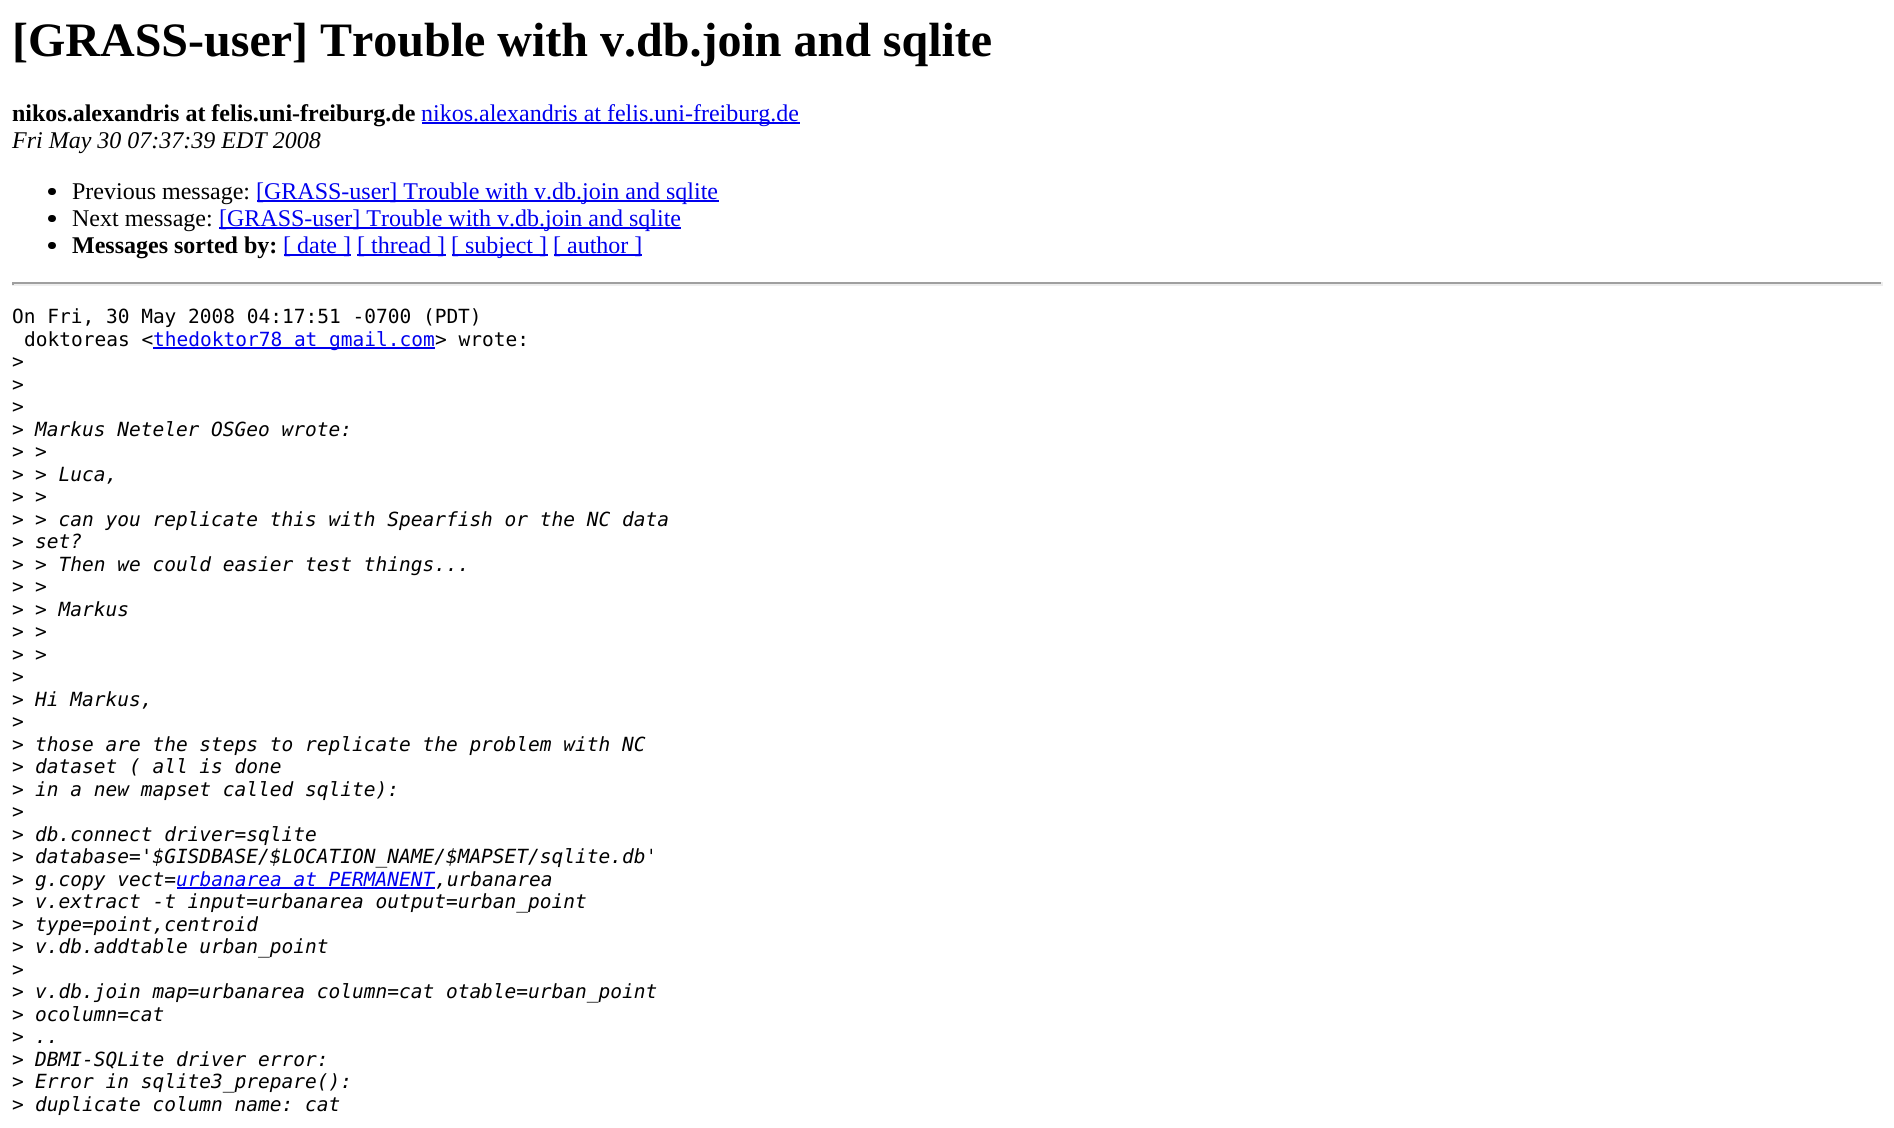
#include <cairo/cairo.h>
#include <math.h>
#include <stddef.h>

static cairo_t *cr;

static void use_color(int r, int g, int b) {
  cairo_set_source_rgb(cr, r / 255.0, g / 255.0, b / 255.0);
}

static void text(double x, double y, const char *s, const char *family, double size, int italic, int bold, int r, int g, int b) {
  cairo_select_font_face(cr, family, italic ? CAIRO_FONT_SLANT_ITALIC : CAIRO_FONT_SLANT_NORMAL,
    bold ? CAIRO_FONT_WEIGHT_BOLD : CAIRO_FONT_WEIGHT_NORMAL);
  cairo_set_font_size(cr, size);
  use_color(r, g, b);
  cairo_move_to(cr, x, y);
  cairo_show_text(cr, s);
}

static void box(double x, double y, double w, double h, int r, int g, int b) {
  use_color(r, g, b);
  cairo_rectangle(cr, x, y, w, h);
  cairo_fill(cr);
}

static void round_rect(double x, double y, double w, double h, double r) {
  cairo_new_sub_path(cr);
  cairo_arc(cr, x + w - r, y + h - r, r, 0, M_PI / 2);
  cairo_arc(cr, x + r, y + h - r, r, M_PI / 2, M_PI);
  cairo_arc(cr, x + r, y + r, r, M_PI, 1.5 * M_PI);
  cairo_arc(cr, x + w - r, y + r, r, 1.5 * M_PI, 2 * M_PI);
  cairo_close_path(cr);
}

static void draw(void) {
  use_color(255, 255, 255);
  cairo_paint(cr);
  box(422, 122, 378, 2, 0, 0, 238);
  use_color(0, 0, 0);
  round_rect(48, 188, 8, 7, 3.5);
  cairo_fill(cr);
  box(257, 200, 462, 2, 0, 0, 238);
  use_color(0, 0, 0);
  round_rect(48, 215, 8, 7, 3.5);
  cairo_fill(cr);
  box(219, 227, 462, 2, 0, 0, 238);
  use_color(0, 0, 0);
  round_rect(48, 242, 8, 7, 3.5);
  cairo_fill(cr);
  box(284, 254, 67, 2, 0, 0, 238);
  box(357, 254, 89, 2, 0, 0, 238);
  box(452, 254, 96, 2, 0, 0, 238);
  box(554, 254, 88, 2, 0, 0, 238);
  box(12, 282, 1871, 2, 159, 159, 159);
  box(1881, 282, 2, 3, 238, 238, 238);
  box(12, 284, 1871, 2, 238, 238, 238);
  box(12, 282, 2, 3, 159, 159, 159);
  box(153, 347, 282, 2, 0, 0, 238);
  box(177, 887, 258, 2, 0, 0, 238);
  text(12, 56, "[GRASS-user] Trouble with v.db.join and sqlite", "Liberation Serif", 48, 0, 1, 0, 0, 0);
  text(12, 121, "nikos.alexandris at felis.uni-freiburg.de", "Liberation Serif", 24, 0, 1, 0, 0, 0);
  text(421, 121, "nikos.alexandris at felis.uni-freiburg.de", "Liberation Serif", 24, 0, 0, 0, 0, 238);
  text(12, 148, "Fri May 30 07:37:39 EDT 2008", "Liberation Serif", 24, 1, 0, 0, 0, 0);
  text(72, 199, "Previous message:", "Liberation Serif", 24, 0, 0, 0, 0, 0);
  text(256, 199, "[GRASS-user] Trouble with v.db.join and sqlite", "Liberation Serif", 24, 0, 0, 0, 0, 238);
  text(72, 226, "Next message:", "Liberation Serif", 24, 0, 0, 0, 0, 0);
  text(219, 226, "[GRASS-user] Trouble with v.db.join and sqlite", "Liberation Serif", 24, 0, 0, 0, 0, 238);
  text(72, 253, "Messages sorted by:", "Liberation Serif", 24, 0, 1, 0, 0, 0);
  text(283, 253, "[ date ]", "Liberation Serif", 24, 0, 0, 0, 0, 238);
  text(357, 253, "[ thread ]", "Liberation Serif", 24, 0, 0, 0, 0, 238);
  text(451, 253, "[ subject ]", "Liberation Serif", 24, 0, 0, 0, 0, 238);
  text(553, 253, "[ author ]", "Liberation Serif", 24, 0, 0, 0, 0, 238);
  text(12, 323, "On Fri, 30 May 2008 04:17:51 -0700 (PDT)", "DejaVu Sans Mono", 19.5, 0, 0, 0, 0, 0);
  text(24, 346, "doktoreas <", "DejaVu Sans Mono", 19.5, 0, 0, 0, 0, 0);
  text(153, 346, "thedoktor78 at gmail.com", "DejaVu Sans Mono", 19.5, 0, 0, 0, 0, 238);
  text(435, 346, "> wrote:", "DejaVu Sans Mono", 19.5, 0, 0, 0, 0, 0);
  text(12, 368, ">", "DejaVu Sans Mono", 19.5, 0, 0, 0, 0, 0);
  text(12, 391, ">", "DejaVu Sans Mono", 19.5, 0, 0, 0, 0, 0);
  text(12, 413, ">", "DejaVu Sans Mono", 19.5, 0, 0, 0, 0, 0);
  text(12, 436, ">", "DejaVu Sans Mono", 19.5, 0, 0, 0, 0, 0);
  text(35, 436, "Markus Neteler OSGeo wrote:", "DejaVu Sans Mono", 19.5, 1, 0, 0, 0, 0);
  text(12, 458, ">", "DejaVu Sans Mono", 19.5, 0, 0, 0, 0, 0);
  text(35, 458, ">", "DejaVu Sans Mono", 19.5, 1, 0, 0, 0, 0);
  text(12, 481, ">", "DejaVu Sans Mono", 19.5, 0, 0, 0, 0, 0);
  text(35, 481, "> Luca,", "DejaVu Sans Mono", 19.5, 1, 0, 0, 0, 0);
  text(12, 503, ">", "DejaVu Sans Mono", 19.5, 0, 0, 0, 0, 0);
  text(35, 503, ">", "DejaVu Sans Mono", 19.5, 1, 0, 0, 0, 0);
  text(12, 526, ">", "DejaVu Sans Mono", 19.5, 0, 0, 0, 0, 0);
  text(35, 526, "> can you replicate this with Spearfish or the NC data", "DejaVu Sans Mono", 19.5, 1, 0, 0, 0, 0);
  text(12, 548, ">", "DejaVu Sans Mono", 19.5, 0, 0, 0, 0, 0);
  text(35, 548, "set?", "DejaVu Sans Mono", 19.5, 1, 0, 0, 0, 0);
  text(12, 571, ">", "DejaVu Sans Mono", 19.5, 0, 0, 0, 0, 0);
  text(35, 571, "> Then we could easier test things...", "DejaVu Sans Mono", 19.5, 1, 0, 0, 0, 0);
  text(12, 593, ">", "DejaVu Sans Mono", 19.5, 0, 0, 0, 0, 0);
  text(35, 593, ">", "DejaVu Sans Mono", 19.5, 1, 0, 0, 0, 0);
  text(12, 616, ">", "DejaVu Sans Mono", 19.5, 0, 0, 0, 0, 0);
  text(35, 616, "> Markus", "DejaVu Sans Mono", 19.5, 1, 0, 0, 0, 0);
  text(12, 638, ">", "DejaVu Sans Mono", 19.5, 0, 0, 0, 0, 0);
  text(35, 638, ">", "DejaVu Sans Mono", 19.5, 1, 0, 0, 0, 0);
  text(12, 661, ">", "DejaVu Sans Mono", 19.5, 0, 0, 0, 0, 0);
  text(35, 661, ">", "DejaVu Sans Mono", 19.5, 1, 0, 0, 0, 0);
  text(12, 683, ">", "DejaVu Sans Mono", 19.5, 0, 0, 0, 0, 0);
  text(12, 706, ">", "DejaVu Sans Mono", 19.5, 0, 0, 0, 0, 0);
  text(35, 706, "Hi Markus,", "DejaVu Sans Mono", 19.5, 1, 0, 0, 0, 0);
  text(12, 728, ">", "DejaVu Sans Mono", 19.5, 0, 0, 0, 0, 0);
  text(12, 751, ">", "DejaVu Sans Mono", 19.5, 0, 0, 0, 0, 0);
  text(35, 751, "those are the steps to replicate the problem with NC", "DejaVu Sans Mono", 19.5, 1, 0, 0, 0, 0);
  text(12, 773, ">", "DejaVu Sans Mono", 19.5, 0, 0, 0, 0, 0);
  text(35, 773, "dataset ( all is done", "DejaVu Sans Mono", 19.5, 1, 0, 0, 0, 0);
  text(12, 796, ">", "DejaVu Sans Mono", 19.5, 0, 0, 0, 0, 0);
  text(35, 796, "in a new mapset called sqlite):", "DejaVu Sans Mono", 19.5, 1, 0, 0, 0, 0);
  text(12, 818, ">", "DejaVu Sans Mono", 19.5, 0, 0, 0, 0, 0);
  text(12, 841, ">", "DejaVu Sans Mono", 19.5, 0, 0, 0, 0, 0);
  text(35, 841, "db.connect driver=sqlite", "DejaVu Sans Mono", 19.5, 1, 0, 0, 0, 0);
  text(12, 863, ">", "DejaVu Sans Mono", 19.5, 0, 0, 0, 0, 0);
  text(35, 863, "database='$GISDBASE/$LOCATION_NAME/$MAPSET/sqlite.db'", "DejaVu Sans Mono", 19.5, 1, 0, 0, 0, 0);
  text(12, 886, ">", "DejaVu Sans Mono", 19.5, 0, 0, 0, 0, 0);
  text(35, 886, "g.copy vect=", "DejaVu Sans Mono", 19.5, 1, 0, 0, 0, 0);
  text(176, 886, "urbanarea at PERMANENT", "DejaVu Sans Mono", 19.5, 1, 0, 0, 0, 238);
  text(435, 886, ",urbanarea", "DejaVu Sans Mono", 19.5, 1, 0, 0, 0, 0);
  text(12, 908, ">", "DejaVu Sans Mono", 19.5, 0, 0, 0, 0, 0);
  text(35, 908, "v.extract -t input=urbanarea output=urban_point", "DejaVu Sans Mono", 19.5, 1, 0, 0, 0, 0);
  text(12, 931, ">", "DejaVu Sans Mono", 19.5, 0, 0, 0, 0, 0);
  text(35, 931, "type=point,centroid", "DejaVu Sans Mono", 19.5, 1, 0, 0, 0, 0);
  text(12, 953, ">", "DejaVu Sans Mono", 19.5, 0, 0, 0, 0, 0);
  text(35, 953, "v.db.addtable urban_point", "DejaVu Sans Mono", 19.5, 1, 0, 0, 0, 0);
  text(12, 976, ">", "DejaVu Sans Mono", 19.5, 0, 0, 0, 0, 0);
  text(12, 998, ">", "DejaVu Sans Mono", 19.5, 0, 0, 0, 0, 0);
  text(35, 998, "v.db.join map=urbanarea column=cat otable=urban_point", "DejaVu Sans Mono", 19.5, 1, 0, 0, 0, 0);
  text(12, 1021, ">", "DejaVu Sans Mono", 19.5, 0, 0, 0, 0, 0);
  text(35, 1021, "ocolumn=cat", "DejaVu Sans Mono", 19.5, 1, 0, 0, 0, 0);
  text(12, 1043, ">", "DejaVu Sans Mono", 19.5, 0, 0, 0, 0, 0);
  text(35, 1043, "..", "DejaVu Sans Mono", 19.5, 1, 0, 0, 0, 0);
  text(12, 1066, ">", "DejaVu Sans Mono", 19.5, 0, 0, 0, 0, 0);
  text(35, 1066, "DBMI-SQLite driver error:", "DejaVu Sans Mono", 19.5, 1, 0, 0, 0, 0);
  text(12, 1088, ">", "DejaVu Sans Mono", 19.5, 0, 0, 0, 0, 0);
  text(35, 1088, "Error in sqlite3_prepare():", "DejaVu Sans Mono", 19.5, 1, 0, 0, 0, 0);
  text(12, 1111, ">", "DejaVu Sans Mono", 19.5, 0, 0, 0, 0, 0);
  text(35, 1111, "duplicate column name: cat", "DejaVu Sans Mono", 19.5, 1, 0, 0, 0, 0);
}

int main(void) {
  cairo_surface_t *surface = cairo_image_surface_create(CAIRO_FORMAT_RGB24, 1894, 1128);
  cr = cairo_create(surface);
  cairo_font_options_t *options = cairo_font_options_create();
  cairo_font_options_set_hint_metrics(options, CAIRO_HINT_METRICS_OFF);
  cairo_font_options_set_hint_style(options, CAIRO_HINT_STYLE_NONE);
  cairo_set_font_options(cr, options);
  cairo_set_miter_limit(cr, 4);
  draw();
  cairo_surface_write_to_png(surface, "out.png");
  cairo_font_options_destroy(options);
  cairo_destroy(cr);
  cairo_surface_destroy(surface);
  return 0;
}
